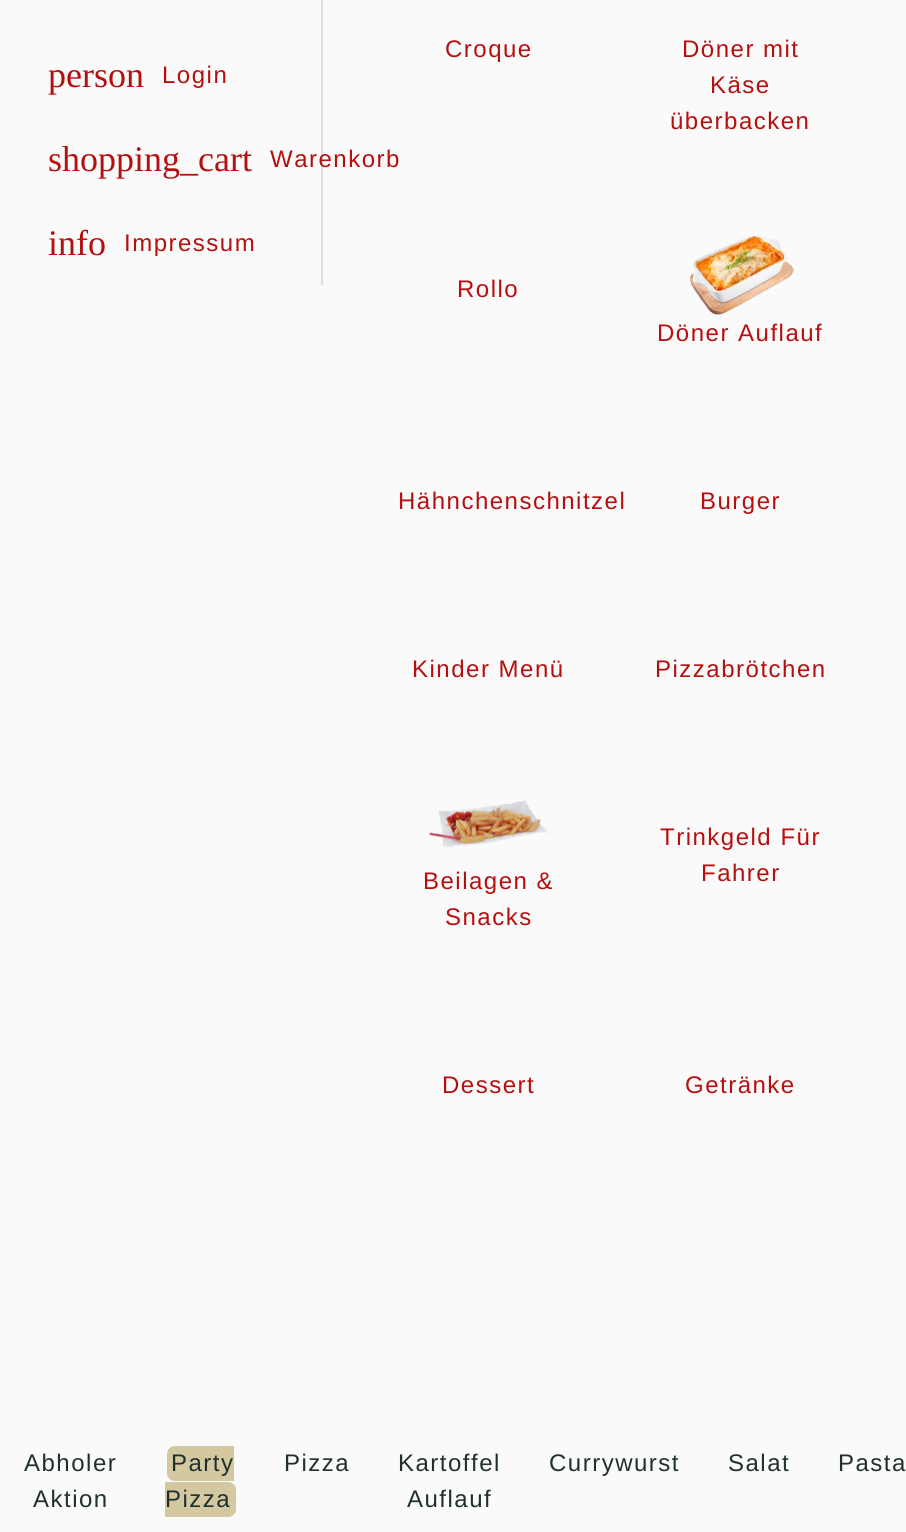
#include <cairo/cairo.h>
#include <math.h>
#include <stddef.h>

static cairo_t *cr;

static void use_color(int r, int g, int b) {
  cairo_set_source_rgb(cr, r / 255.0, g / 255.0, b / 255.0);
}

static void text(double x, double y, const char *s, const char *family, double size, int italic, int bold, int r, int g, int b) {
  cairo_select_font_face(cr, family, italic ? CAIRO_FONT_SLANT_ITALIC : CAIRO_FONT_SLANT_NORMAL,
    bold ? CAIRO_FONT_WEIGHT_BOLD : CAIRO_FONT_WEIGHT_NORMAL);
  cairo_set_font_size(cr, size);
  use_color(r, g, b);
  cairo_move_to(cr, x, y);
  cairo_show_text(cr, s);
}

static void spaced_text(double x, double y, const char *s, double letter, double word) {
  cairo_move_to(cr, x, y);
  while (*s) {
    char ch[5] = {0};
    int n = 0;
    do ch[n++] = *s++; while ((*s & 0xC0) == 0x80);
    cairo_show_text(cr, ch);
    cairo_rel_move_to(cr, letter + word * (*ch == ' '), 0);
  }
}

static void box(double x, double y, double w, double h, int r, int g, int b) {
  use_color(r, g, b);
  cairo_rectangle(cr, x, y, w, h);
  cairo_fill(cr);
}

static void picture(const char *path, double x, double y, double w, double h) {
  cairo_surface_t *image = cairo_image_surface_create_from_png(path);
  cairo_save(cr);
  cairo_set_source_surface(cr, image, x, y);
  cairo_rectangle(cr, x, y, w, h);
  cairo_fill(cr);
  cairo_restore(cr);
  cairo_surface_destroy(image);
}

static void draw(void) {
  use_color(250, 250, 250);
  cairo_paint(cr);
  box(321, 0, 2, 285, 223, 223, 223);
  picture("img_01.png", 690, 235, 104, 80);
  picture("img_02.png", 429, 800, 119, 48);
  use_color(211, 200, 159);
  cairo_new_path(cr);
  cairo_move_to(cr, 175, 1446);
  cairo_line_to(cr, 234, 1446);
  cairo_line_to(cr, 234, 1481);
  cairo_line_to(cr, 175, 1481);
  cairo_curve_to(cr, 170.5, 1481, 167, 1477.5, 167, 1473);
  cairo_line_to(cr, 167, 1454);
  cairo_curve_to(cr, 167, 1449.5, 170.5, 1446, 175, 1446);
  cairo_close_path(cr);
  cairo_fill(cr);
  cairo_new_path(cr);
  cairo_move_to(cr, 165, 1482);
  cairo_line_to(cr, 228, 1482);
  cairo_curve_to(cr, 232.5, 1482, 236, 1485.5, 236, 1490);
  cairo_line_to(cr, 236, 1509);
  cairo_curve_to(cr, 236, 1513.5, 232.5, 1517, 228, 1517);
  cairo_line_to(cr, 165, 1517);
  cairo_close_path(cr);
  cairo_fill(cr);
  text(48, 87, "person", "Liberation Serif", 36, 0, 0, 182, 15, 15);
  cairo_select_font_face(cr, "Liberation Sans", CAIRO_FONT_SLANT_NORMAL, CAIRO_FONT_WEIGHT_NORMAL);
  cairo_set_font_size(cr, 24);
  spaced_text(162, 83, "Login", 1.5, 0);
  text(48, 171, "shopping_cart", "Liberation Serif", 36, 0, 0, 182, 15, 15);
  cairo_select_font_face(cr, "Liberation Sans", CAIRO_FONT_SLANT_NORMAL, CAIRO_FONT_WEIGHT_NORMAL);
  cairo_set_font_size(cr, 24);
  spaced_text(270, 167, "Warenkorb", 1.5, 0);
  text(48, 255, "info", "Liberation Serif", 36, 0, 0, 182, 15, 15);
  cairo_select_font_face(cr, "Liberation Sans", CAIRO_FONT_SLANT_NORMAL, CAIRO_FONT_WEIGHT_NORMAL);
  cairo_set_font_size(cr, 24);
  spaced_text(124, 251, "Impressum", 1.5, 0);
  spaced_text(445, 57, "Croque", 1.5, 0);
  spaced_text(682, 57, "Döner mit", 1.5, 0);
  spaced_text(710, 93, "Käse", 1.5, 0);
  spaced_text(670, 129, "überbacken", 1.5, 0);
  spaced_text(457, 297, "Rollo", 1.5, 0);
  spaced_text(657, 341, "Döner Auflauf", 1.5, 0);
  spaced_text(398, 509, "Hähnchenschnitzel", 1.5, 0);
  spaced_text(700, 509, "Burger", 1.5, 0);
  spaced_text(412, 677, "Kinder Menü", 1.5, 0);
  spaced_text(655, 677, "Pizzabrötchen", 1.5, 0);
  spaced_text(660, 845, "Trinkgeld Für", 1.5, 0);
  spaced_text(701, 881, "Fahrer", 1.5, 0);
  spaced_text(423, 889, "Beilagen &", 1.5, 0);
  spaced_text(445, 925, "Snacks", 1.5, 0);
  spaced_text(442, 1093, "Dessert", 1.5, 0);
  spaced_text(685, 1093, "Getränke", 1.5, 0);
  use_color(32, 48, 48);
  spaced_text(24, 1471, "Abholer", 1.5, 0);
  spaced_text(33, 1507, "Aktion", 1.5, 0);
  spaced_text(171, 1471, "Party", 1.5, 0);
  spaced_text(165, 1507, "Pizza", 1.5, 0);
  spaced_text(284, 1471, "Pizza", 1.5, 0);
  spaced_text(398, 1471, "Kartoffel", 1.5, 0);
  spaced_text(407, 1507, "Auflauf", 1.5, 0);
  spaced_text(549, 1471, "Currywurst", 1.5, 0);
  spaced_text(728, 1471, "Salat", 1.5, 0);
  spaced_text(838, 1471, "Pasta", 1.5, 0);
}

int main(void) {
  cairo_surface_t *surface = cairo_image_surface_create(CAIRO_FORMAT_RGB24, 906, 1532);
  cr = cairo_create(surface);
  cairo_font_options_t *options = cairo_font_options_create();
  cairo_font_options_set_hint_metrics(options, CAIRO_HINT_METRICS_OFF);
  cairo_font_options_set_hint_style(options, CAIRO_HINT_STYLE_NONE);
  cairo_set_font_options(cr, options);
  cairo_set_miter_limit(cr, 4);
  draw();
  cairo_surface_write_to_png(surface, "out.png");
  cairo_font_options_destroy(options);
  cairo_destroy(cr);
  cairo_surface_destroy(surface);
  return 0;
}
